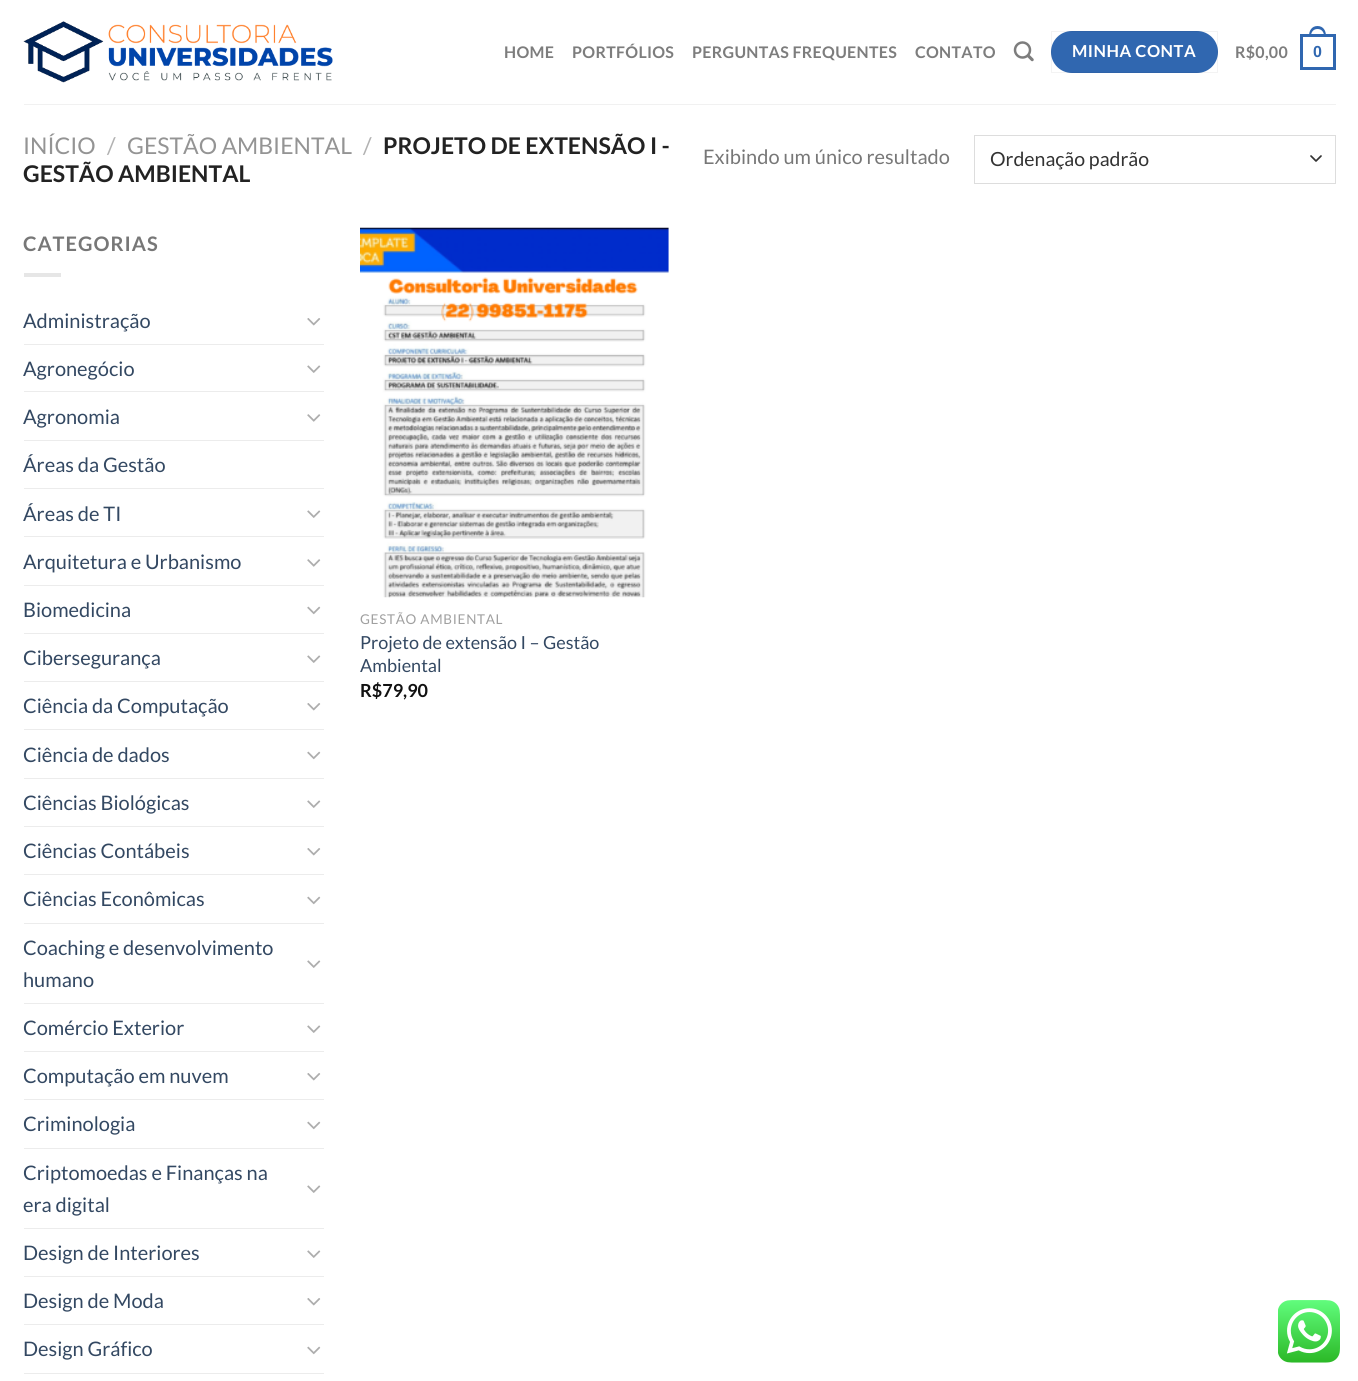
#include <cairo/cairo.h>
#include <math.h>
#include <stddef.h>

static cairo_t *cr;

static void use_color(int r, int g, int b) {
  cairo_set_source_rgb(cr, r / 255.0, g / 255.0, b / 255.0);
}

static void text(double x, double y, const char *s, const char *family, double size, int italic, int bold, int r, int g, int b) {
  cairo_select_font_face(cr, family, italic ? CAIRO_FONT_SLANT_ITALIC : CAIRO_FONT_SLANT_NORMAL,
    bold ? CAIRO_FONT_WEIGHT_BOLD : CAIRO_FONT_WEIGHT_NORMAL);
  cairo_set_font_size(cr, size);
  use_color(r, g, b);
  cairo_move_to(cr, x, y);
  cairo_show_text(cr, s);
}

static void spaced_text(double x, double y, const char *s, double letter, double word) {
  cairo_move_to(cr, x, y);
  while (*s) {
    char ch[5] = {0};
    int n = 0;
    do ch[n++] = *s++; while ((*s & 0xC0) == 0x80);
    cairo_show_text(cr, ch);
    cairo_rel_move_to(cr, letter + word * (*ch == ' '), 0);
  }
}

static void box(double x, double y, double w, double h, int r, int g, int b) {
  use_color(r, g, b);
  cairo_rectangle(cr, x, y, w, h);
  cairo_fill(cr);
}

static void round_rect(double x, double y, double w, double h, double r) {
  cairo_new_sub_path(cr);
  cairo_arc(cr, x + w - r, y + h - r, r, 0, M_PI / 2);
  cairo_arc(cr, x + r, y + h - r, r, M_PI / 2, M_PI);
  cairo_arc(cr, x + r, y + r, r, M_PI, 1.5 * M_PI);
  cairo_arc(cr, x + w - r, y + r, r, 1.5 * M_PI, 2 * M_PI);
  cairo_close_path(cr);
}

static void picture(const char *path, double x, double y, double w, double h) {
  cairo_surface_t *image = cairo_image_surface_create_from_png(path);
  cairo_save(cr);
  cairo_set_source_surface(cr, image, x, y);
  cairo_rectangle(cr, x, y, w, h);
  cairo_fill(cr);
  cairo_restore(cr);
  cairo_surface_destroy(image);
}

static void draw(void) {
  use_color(255, 255, 255);
  cairo_paint(cr);
  picture("img_01.png", 23, 21, 310, 62);
  picture("img_02.png", 1013, 41, 21, 21);
  use_color(48, 103, 176);
  round_rect(1051, 31, 167, 42, 21);
  cairo_fill(cr);
  cairo_rectangle(cr, 1051.5, 31.5, 166, 41);
  cairo_set_source_rgba(cr, 0, 0, 0, 0.05);
  cairo_set_line_width(cr, 1);
  cairo_stroke(cr);
  cairo_rectangle(cr, 1301.5, 35.5, 33, 33);
  use_color(48, 103, 176);
  cairo_set_line_width(cr, 3);
  cairo_stroke(cr);
  cairo_set_fill_rule(cr, CAIRO_FILL_RULE_EVEN_ODD);
  cairo_new_path(cr);
  cairo_move_to(cr, 1317.5, 26);
  cairo_curve_to(cr, 1323.5, 26, 1326, 31, 1326, 36);
  cairo_line_to(cr, 1309, 36);
  cairo_curve_to(cr, 1309, 31, 1311.5, 26, 1317.5, 26);
  cairo_close_path(cr);
  cairo_move_to(cr, 1317.5, 29);
  cairo_curve_to(cr, 1322, 29, 1324, 32.5, 1324, 36);
  cairo_line_to(cr, 1311, 36);
  cairo_curve_to(cr, 1311, 32.5, 1313, 29, 1317.5, 29);
  cairo_close_path(cr);
  cairo_fill(cr);
  box(24, 104, 1312, 1, 241, 241, 241);
  cairo_new_path(cr);
  cairo_move_to(cr, 1311, 156);
  cairo_line_to(cr, 1316, 161);
  cairo_line_to(cr, 1321, 156);
  use_color(51, 51, 51);
  cairo_set_line_width(cr, 1.7);
  cairo_set_line_cap(cr, CAIRO_LINE_CAP_ROUND);
  cairo_set_line_join(cr, CAIRO_LINE_JOIN_ROUND);
  cairo_stroke(cr);
  cairo_rectangle(cr, 974.5, 135.5, 361, 48);
  use_color(221, 221, 221);
  cairo_set_line_width(cr, 1);
  cairo_set_line_cap(cr, CAIRO_LINE_CAP_BUTT);
  cairo_set_line_join(cr, CAIRO_LINE_JOIN_MITER);
  cairo_stroke(cr);
  box(24, 273, 37, 4, 230, 230, 230);
  picture("img_03.png", 307, 318, 14, 8);
  box(24, 344, 300, 1, 236, 236, 236);
  picture("img_04.png", 307, 365, 14, 8);
  box(24, 391, 300, 1, 236, 236, 236);
  picture("img_05.png", 307, 414, 14, 8);
  box(24, 440, 300, 1, 236, 236, 236);
  box(24, 488, 300, 1, 236, 236, 236);
  picture("img_04.png", 307, 510, 14, 8);
  box(24, 536, 300, 1, 236, 236, 236);
  picture("img_05.png", 307, 559, 14, 8);
  box(24, 585, 300, 1, 236, 236, 236);
  picture("img_06.png", 307, 606, 14, 9);
  box(24, 633, 300, 1, 236, 236, 236);
  picture("img_04.png", 307, 655, 14, 8);
  box(24, 681, 300, 1, 236, 236, 236);
  picture("img_03.png", 307, 703, 14, 8);
  box(24, 729, 300, 1, 236, 236, 236);
  picture("img_06.png", 307, 751, 14, 9);
  box(24, 778, 300, 1, 236, 236, 236);
  picture("img_04.png", 307, 800, 14, 8);
  box(24, 826, 300, 1, 236, 236, 236);
  picture("img_03.png", 307, 848, 14, 8);
  box(24, 874, 300, 1, 236, 236, 236);
  picture("img_06.png", 307, 896, 14, 9);
  box(24, 923, 300, 1, 236, 236, 236);
  picture("img_04.png", 307, 960, 14, 8);
  box(24, 1003, 300, 1, 236, 236, 236);
  picture("img_04.png", 307, 1025, 14, 8);
  box(24, 1051, 300, 1, 236, 236, 236);
  picture("img_03.png", 307, 1073, 14, 8);
  box(24, 1099, 300, 1, 236, 236, 236);
  picture("img_06.png", 307, 1121, 14, 9);
  box(24, 1148, 300, 1, 236, 236, 236);
  picture("img_04.png", 307, 1185, 14, 8);
  box(24, 1228, 300, 1, 236, 236, 236);
  picture("img_04.png", 307, 1250, 14, 8);
  box(24, 1276, 300, 1, 236, 236, 236);
  picture("img_03.png", 307, 1298, 14, 8);
  box(24, 1324, 300, 1, 236, 236, 236);
  picture("img_06.png", 307, 1346, 14, 9);
  box(24, 1373, 300, 1, 236, 236, 236);
  picture("img_07.png", 360, 227, 309, 371);
  picture("img_08.png", 1278, 1300, 62, 63);
  cairo_select_font_face(cr, "Lato", CAIRO_FONT_SLANT_NORMAL, CAIRO_FONT_WEIGHT_BOLD);
  cairo_set_font_size(cr, 16);
  use_color(125, 125, 125);
  spaced_text(504, 58, "HOME", 0.3, 0);
  spaced_text(572, 58, "PORTFÓLIOS", 0.3, 0);
  spaced_text(692, 58, "PERGUNTAS FREQUENTES", 0.3, 0);
  spaced_text(915, 58, "CONTATO", 0.3, 0);
  cairo_set_font_size(cr, 16.5);
  use_color(255, 255, 255);
  spaced_text(1072, 57, "MINHA CONTA", 0.5, 0);
  cairo_set_font_size(cr, 16);
  use_color(125, 125, 125);
  spaced_text(1235, 58, "R$0,00", 0.3, 0);
  cairo_select_font_face(cr, "Liberation Sans", CAIRO_FONT_SLANT_NORMAL, CAIRO_FONT_WEIGHT_BOLD);
  use_color(48, 103, 176);
  spaced_text(1313, 57, "0", 0.3, 0);
  text(23, 154, "INÍCIO", "Lato", 23, 0, 0, 148, 148, 148);
  text(107, 154, "/", "Lato", 23, 0, 0, 178, 178, 178);
  text(127, 154, "GESTÃO AMBIENTAL", "Lato", 23, 0, 0, 148, 148, 148);
  text(363, 154, "/", "Lato", 23, 0, 0, 178, 178, 178);
  text(383, 154, "PROJETO DE EXTENSÃO I -", "Lato", 23, 0, 1, 34, 34, 34);
  text(23, 182, "GESTÃO AMBIENTAL", "Lato", 23, 0, 1, 34, 34, 34);
  text(703, 164, "Exibindo um único resultado", "Lato", 20, 0, 0, 119, 119, 119);
  text(990, 166, "Ordenação padrão", "Lato", 19.5, 0, 0, 51, 51, 51);
  cairo_select_font_face(cr, "Lato", CAIRO_FONT_SLANT_NORMAL, CAIRO_FONT_WEIGHT_BOLD);
  cairo_set_font_size(cr, 20);
  use_color(119, 119, 119);
  spaced_text(23, 251, "CATEGORIAS", 1, 0);
  text(23, 328, "Administração", "Lato", 20, 0, 0, 51, 72, 98);
  text(23, 376, "Agronegócio", "Lato", 20, 0, 0, 51, 72, 98);
  text(23, 424, "Agronomia", "Lato", 20, 0, 0, 51, 72, 98);
  text(23, 472, "Áreas da Gestão", "Lato", 20, 0, 0, 51, 72, 98);
  text(23, 521, "Áreas de TI", "Lato", 20, 0, 0, 51, 72, 98);
  text(23, 569, "Arquitetura e Urbanismo", "Lato", 20, 0, 0, 51, 72, 98);
  text(23, 617, "Biomedicina", "Lato", 20, 0, 0, 51, 72, 98);
  text(23, 665, "Cibersegurança", "Lato", 20, 0, 0, 51, 72, 98);
  text(23, 713, "Ciência da Computação", "Lato", 20, 0, 0, 51, 72, 98);
  text(23, 762, "Ciência de dados", "Lato", 20, 0, 0, 51, 72, 98);
  text(23, 810, "Ciências Biológicas", "Lato", 20, 0, 0, 51, 72, 98);
  text(23, 858, "Ciências Contábeis", "Lato", 20, 0, 0, 51, 72, 98);
  text(23, 906, "Ciências Econômicas", "Lato", 20, 0, 0, 51, 72, 98);
  text(23, 955, "Coaching e desenvolvimento", "Lato", 20, 0, 0, 51, 72, 98);
  text(23, 987, "humano", "Lato", 20, 0, 0, 51, 72, 98);
  text(23, 1035, "Comércio Exterior", "Lato", 20, 0, 0, 51, 72, 98);
  text(23, 1083, "Computação em nuvem", "Lato", 20, 0, 0, 51, 72, 98);
  text(23, 1131, "Criminologia", "Lato", 20, 0, 0, 51, 72, 98);
  text(23, 1180, "Criptomoedas e Finanças na", "Lato", 20, 0, 0, 51, 72, 98);
  text(23, 1212, "era digital", "Lato", 20, 0, 0, 51, 72, 98);
  text(23, 1260, "Design de Interiores", "Lato", 20, 0, 0, 51, 72, 98);
  text(23, 1308, "Design de Moda", "Lato", 20, 0, 0, 51, 72, 98);
  text(23, 1356, "Design Gráfico", "Lato", 20, 0, 0, 51, 72, 98);
  cairo_set_font_size(cr, 13.5);
  use_color(160, 160, 160);
  spaced_text(360, 624, "GESTÃO AMBIENTAL", 0.7, 0);
  text(360, 649, "Projeto de extensão I – Gestão", "Lato", 18, 0, 0, 51, 72, 98);
  text(360, 672, "Ambiental", "Lato", 18, 0, 0, 51, 72, 98);
  text(360, 697, "R$79,90", "Lato", 18, 0, 1, 17, 17, 17);
}

int main(void) {
  cairo_surface_t *surface = cairo_image_surface_create(CAIRO_FORMAT_RGB24, 1358, 1381);
  cr = cairo_create(surface);
  cairo_font_options_t *options = cairo_font_options_create();
  cairo_font_options_set_hint_metrics(options, CAIRO_HINT_METRICS_OFF);
  cairo_font_options_set_hint_style(options, CAIRO_HINT_STYLE_NONE);
  cairo_set_font_options(cr, options);
  cairo_set_miter_limit(cr, 4);
  draw();
  cairo_surface_write_to_png(surface, "out.png");
  cairo_font_options_destroy(options);
  cairo_destroy(cr);
  cairo_surface_destroy(surface);
  return 0;
}
